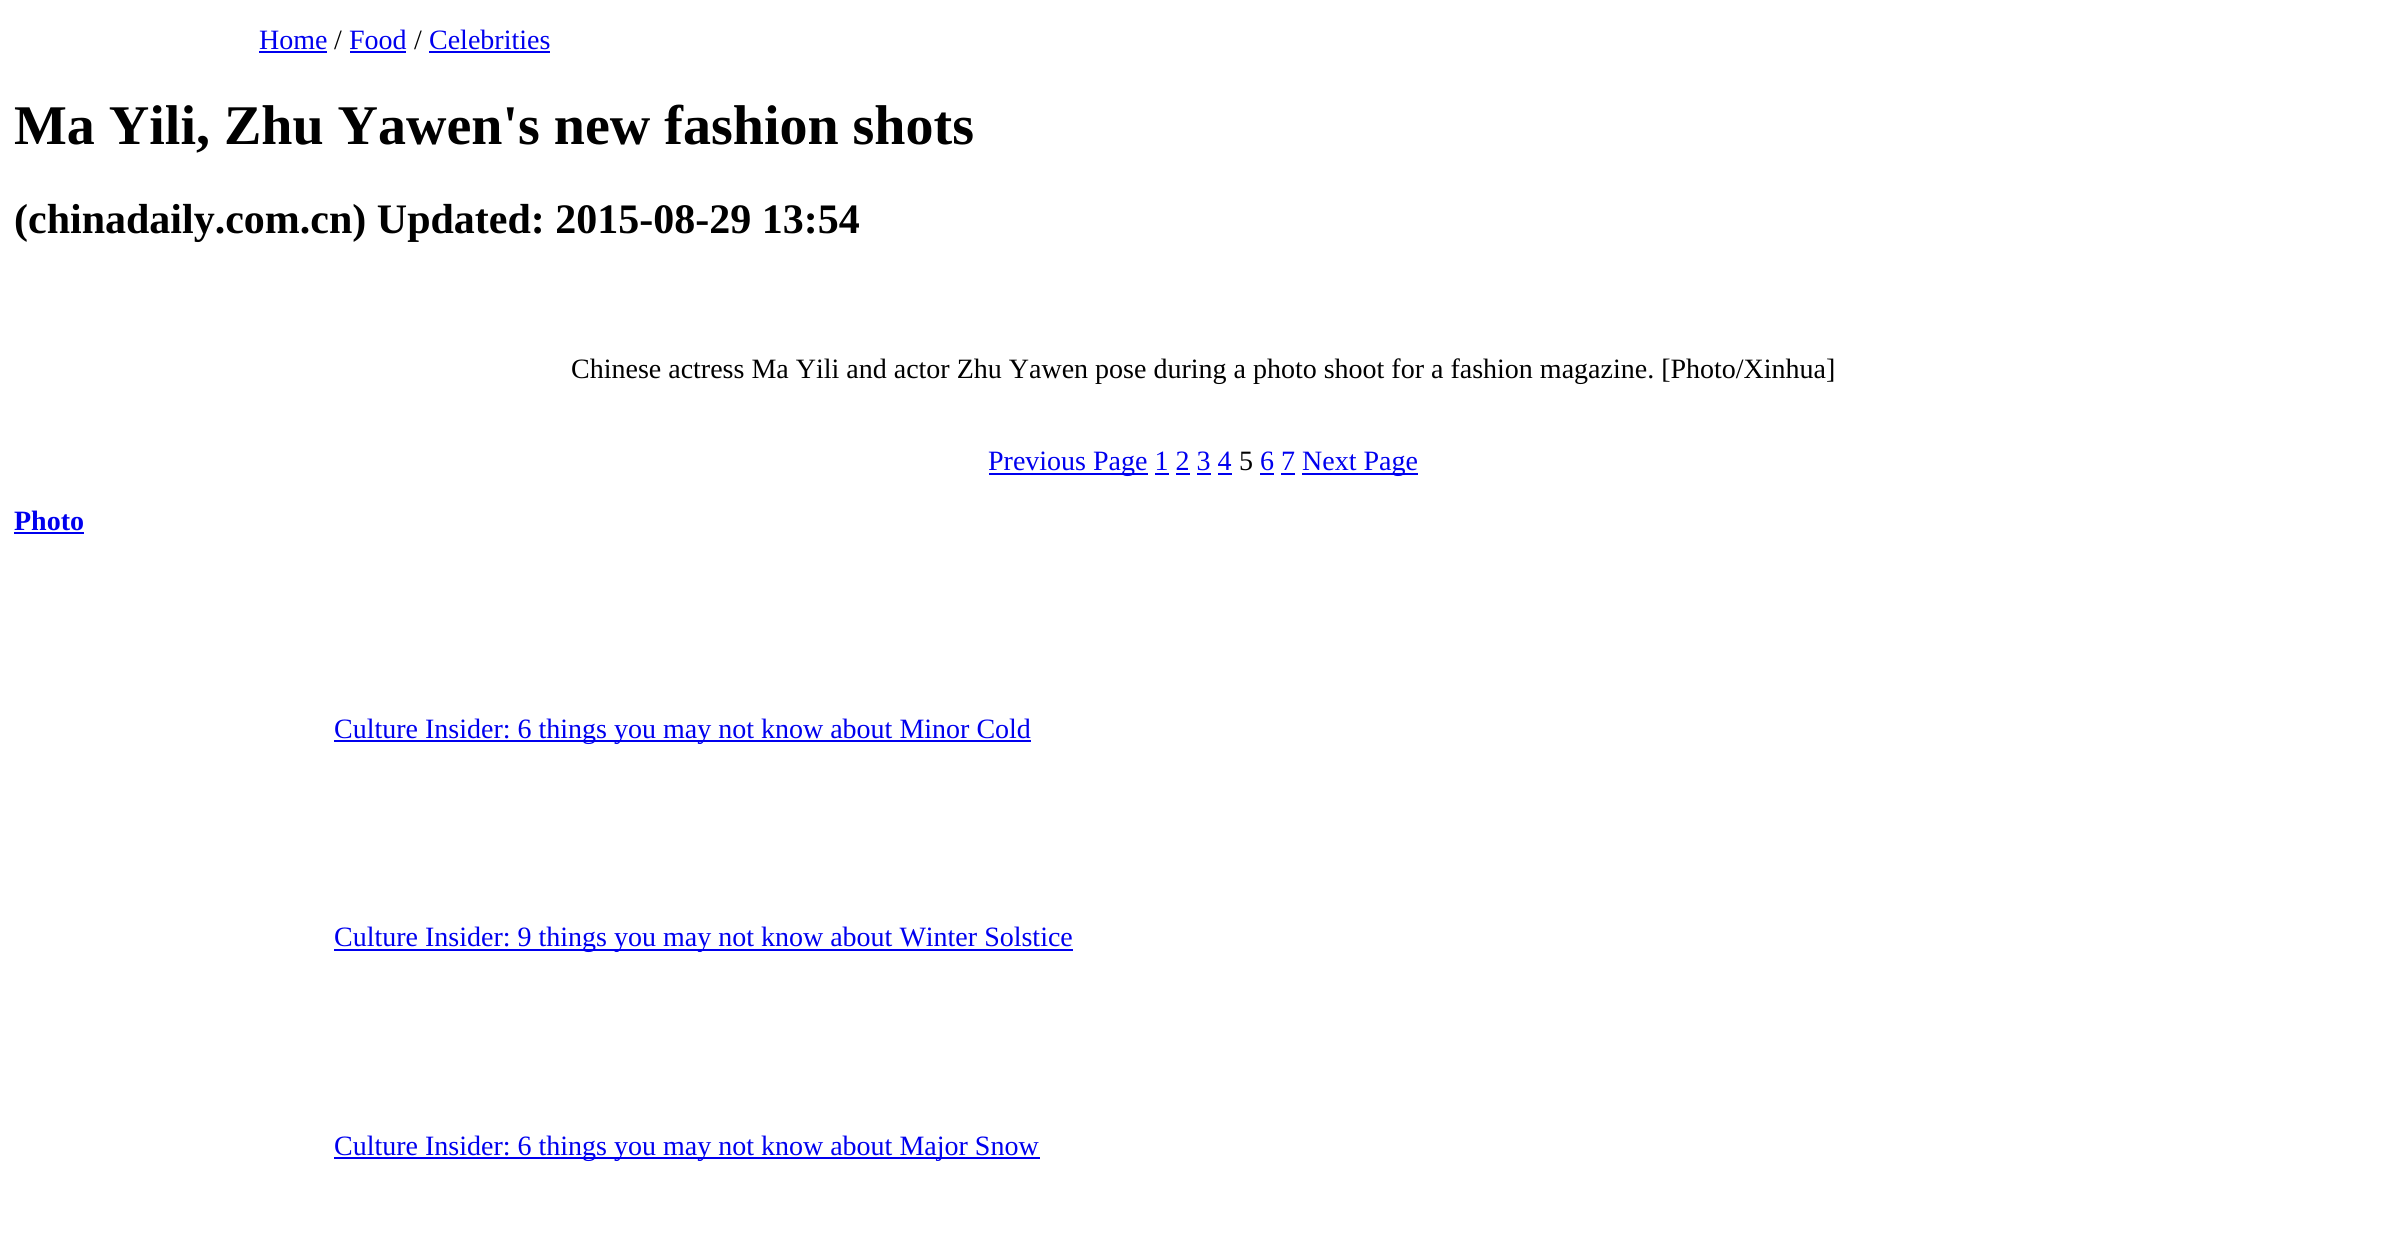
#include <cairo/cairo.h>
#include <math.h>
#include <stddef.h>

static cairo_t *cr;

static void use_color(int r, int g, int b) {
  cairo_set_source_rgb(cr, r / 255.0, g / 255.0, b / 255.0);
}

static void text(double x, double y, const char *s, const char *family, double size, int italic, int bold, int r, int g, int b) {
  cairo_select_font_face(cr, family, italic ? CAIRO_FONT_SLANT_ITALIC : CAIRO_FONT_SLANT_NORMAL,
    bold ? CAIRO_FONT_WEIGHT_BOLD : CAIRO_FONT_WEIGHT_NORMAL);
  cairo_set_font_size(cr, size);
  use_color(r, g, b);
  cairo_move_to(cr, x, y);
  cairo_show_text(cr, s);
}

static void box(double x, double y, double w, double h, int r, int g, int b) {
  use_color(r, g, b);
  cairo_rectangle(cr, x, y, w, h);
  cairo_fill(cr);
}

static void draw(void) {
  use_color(255, 255, 255);
  cairo_paint(cr);
  box(259, 51, 68, 2, 0, 0, 238);
  box(350, 51, 56, 2, 0, 0, 238);
  box(429, 51, 121, 2, 0, 0, 238);
  box(989, 473, 159, 2, 0, 0, 238);
  box(1260, 473, 14, 2, 0, 0, 238);
  box(1302, 473, 116, 2, 0, 0, 238);
  box(1155, 473, 14, 2, 0, 0, 238);
  box(1176, 473, 14, 2, 0, 0, 238);
  box(1197, 473, 14, 2, 0, 0, 238);
  box(1218, 473, 14, 2, 0, 0, 238);
  box(1281, 473, 14, 2, 0, 0, 238);
  box(14, 532, 70, 2, 0, 0, 238);
  box(334, 740, 697, 2, 0, 0, 238);
  box(334, 949, 739, 2, 0, 0, 238);
  box(334, 1157, 706, 2, 0, 0, 238);
  text(259, 49, "Home", "Liberation Serif", 28, 0, 0, 0, 0, 238);
  text(334, 49, "/", "Liberation Serif", 28, 0, 0, 0, 0, 0);
  text(349, 49, "Food", "Liberation Serif", 28, 0, 0, 0, 0, 238);
  text(414, 49, "/", "Liberation Serif", 28, 0, 0, 0, 0, 0);
  text(429, 49, "Celebrities", "Liberation Serif", 28, 0, 0, 0, 0, 238);
  text(14, 144, "Ma Yili, Zhu Yawen's new fashion shots", "Liberation Serif", 56, 0, 1, 0, 0, 0);
  text(14, 233, "(chinadaily.com.cn) Updated: 2015-08-29 13:54", "Liberation Serif", 42, 0, 1, 0, 0, 0);
  text(571, 378, "Chinese actress Ma Yili and actor Zhu Yawen pose during a photo shoot for a fashion magazine. [Photo/Xinhua]", "Liberation Serif", 28, 0, 0, 0, 0, 0);
  text(988, 470, "Previous Page 1 2 3 4", "Liberation Serif", 28, 0, 0, 0, 0, 238);
  text(1239, 470, "5", "Liberation Serif", 28, 0, 0, 0, 0, 0);
  text(1260, 470, "6 7", "Liberation Serif", 28, 0, 0, 0, 0, 238);
  text(1302, 470, "Next Page", "Liberation Serif", 28, 0, 0, 0, 0, 238);
  text(14, 530, "Photo", "Liberation Serif", 28, 0, 1, 0, 0, 238);
  text(334, 738, "Culture Insider: 6 things you may not know about Minor Cold", "Liberation Serif", 28, 0, 0, 0, 0, 238);
  text(334, 946, "Culture Insider: 9 things you may not know about Winter Solstice", "Liberation Serif", 28, 0, 0, 0, 0, 238);
  text(334, 1155, "Culture Insider: 6 things you may not know about Major Snow", "Liberation Serif", 28, 0, 0, 0, 0, 238);
}

int main(void) {
  cairo_surface_t *surface = cairo_image_surface_create(CAIRO_FORMAT_RGB24, 2406, 1236);
  cr = cairo_create(surface);
  cairo_font_options_t *options = cairo_font_options_create();
  cairo_font_options_set_hint_metrics(options, CAIRO_HINT_METRICS_OFF);
  cairo_font_options_set_hint_style(options, CAIRO_HINT_STYLE_NONE);
  cairo_set_font_options(cr, options);
  cairo_set_miter_limit(cr, 4);
  draw();
  cairo_surface_write_to_png(surface, "out.png");
  cairo_font_options_destroy(options);
  cairo_destroy(cr);
  cairo_surface_destroy(surface);
  return 0;
}
